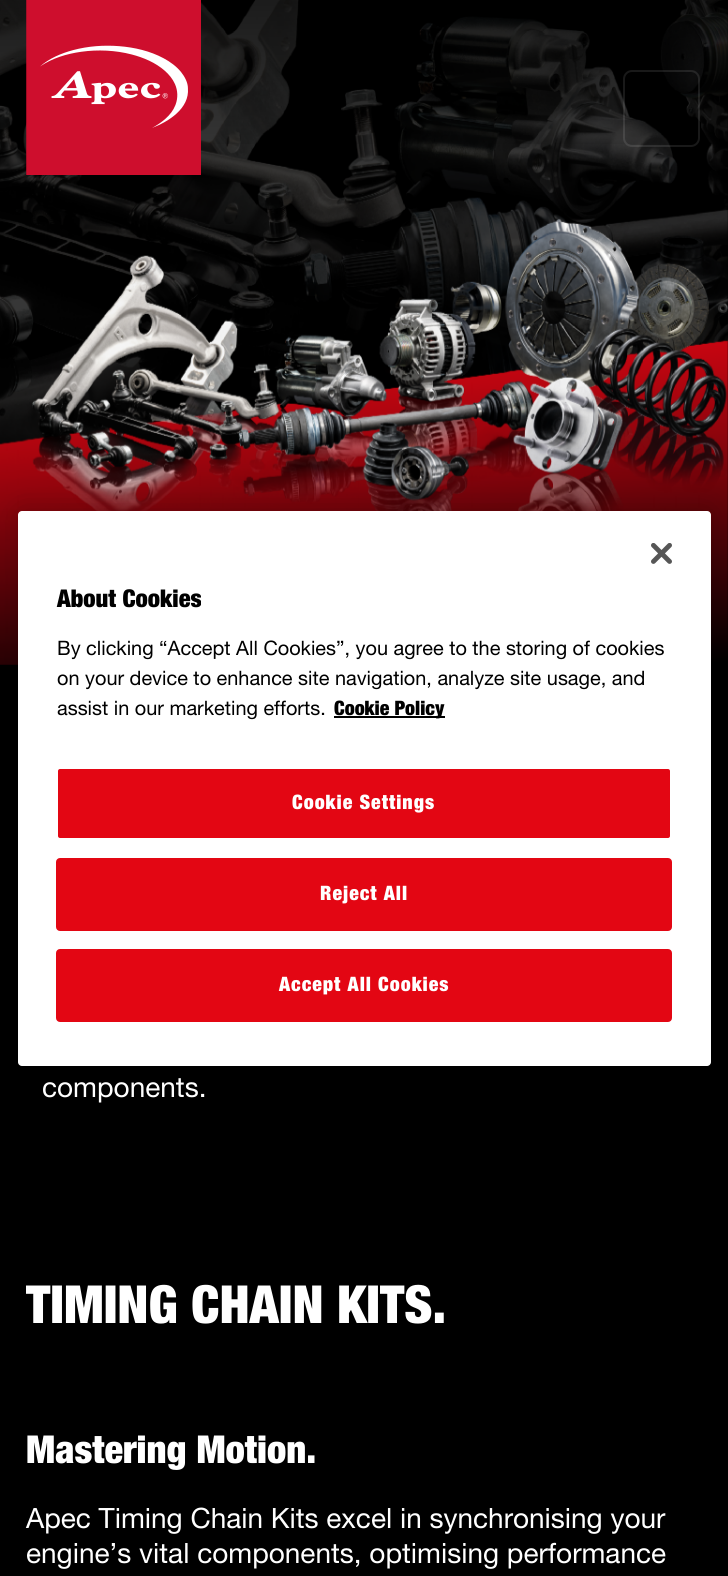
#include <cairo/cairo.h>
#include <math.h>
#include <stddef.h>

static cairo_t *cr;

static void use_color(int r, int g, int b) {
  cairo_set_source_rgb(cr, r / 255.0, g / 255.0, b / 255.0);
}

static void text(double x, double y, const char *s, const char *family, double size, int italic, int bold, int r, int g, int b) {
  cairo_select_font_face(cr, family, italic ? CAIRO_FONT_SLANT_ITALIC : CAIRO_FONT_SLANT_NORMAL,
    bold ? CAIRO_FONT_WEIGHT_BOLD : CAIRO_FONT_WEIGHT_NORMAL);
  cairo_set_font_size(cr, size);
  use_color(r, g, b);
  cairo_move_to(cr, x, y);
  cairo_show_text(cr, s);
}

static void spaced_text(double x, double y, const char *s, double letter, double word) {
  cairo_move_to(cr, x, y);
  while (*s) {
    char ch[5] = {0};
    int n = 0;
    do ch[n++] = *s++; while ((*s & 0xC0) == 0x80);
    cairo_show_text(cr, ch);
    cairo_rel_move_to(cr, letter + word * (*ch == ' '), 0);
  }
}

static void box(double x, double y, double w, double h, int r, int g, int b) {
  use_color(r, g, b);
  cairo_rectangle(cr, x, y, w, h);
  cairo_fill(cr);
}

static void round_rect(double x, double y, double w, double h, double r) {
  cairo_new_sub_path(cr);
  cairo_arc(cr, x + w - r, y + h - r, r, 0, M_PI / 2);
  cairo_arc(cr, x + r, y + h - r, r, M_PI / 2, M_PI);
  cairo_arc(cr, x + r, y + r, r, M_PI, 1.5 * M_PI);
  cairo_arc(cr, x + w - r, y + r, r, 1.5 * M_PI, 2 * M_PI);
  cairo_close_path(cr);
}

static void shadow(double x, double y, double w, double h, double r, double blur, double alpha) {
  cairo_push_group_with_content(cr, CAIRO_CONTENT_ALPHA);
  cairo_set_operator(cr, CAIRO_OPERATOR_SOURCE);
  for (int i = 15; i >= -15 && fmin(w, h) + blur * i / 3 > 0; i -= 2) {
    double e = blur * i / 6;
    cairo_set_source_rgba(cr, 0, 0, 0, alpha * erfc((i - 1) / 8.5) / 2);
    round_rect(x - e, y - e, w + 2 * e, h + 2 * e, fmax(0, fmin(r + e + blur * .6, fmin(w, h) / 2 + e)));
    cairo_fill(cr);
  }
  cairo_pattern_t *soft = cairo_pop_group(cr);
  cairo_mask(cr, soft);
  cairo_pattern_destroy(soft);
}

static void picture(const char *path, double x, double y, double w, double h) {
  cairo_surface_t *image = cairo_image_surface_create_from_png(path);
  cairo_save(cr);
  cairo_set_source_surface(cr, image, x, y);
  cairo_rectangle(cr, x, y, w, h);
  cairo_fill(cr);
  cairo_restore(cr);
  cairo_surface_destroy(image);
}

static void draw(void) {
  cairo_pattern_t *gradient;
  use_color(0, 0, 0);
  cairo_paint(cr);
  picture("img_03.png", 0, 0, 728, 665);
  gradient = cairo_pattern_create_linear(364, 0, 364, 177);
  cairo_pattern_add_color_stop_rgba(gradient, 0, 0, 0, 0, 0.5);
  cairo_pattern_add_color_stop_rgba(gradient, 0.9, 0, 0, 0, 0);
  cairo_set_source(cr, gradient);
  cairo_pattern_destroy(gradient);
  cairo_rectangle(cr, 0, 0, 728, 144);
  cairo_fill(cr);
  picture("img_01.png", 26, 0, 175, 175);
  round_rect(624, 71, 75, 75, 8);
  cairo_set_source_rgba(cr, 1, 1, 1, 0.1);
  cairo_stroke(cr);
  use_color(0, 0, 0);
  shadow(18, 511, 693, 555, 4, 16, 0.2);
  use_color(255, 255, 255);
  round_rect(18, 511, 693, 555, 4);
  cairo_fill(cr);
  picture("img_02.png", 651, 543, 21, 21);
  box(334, 716, 111, 2, 0, 0, 0);
  use_color(227, 6, 19);
  round_rect(57, 768, 614, 71, 3);
  cairo_fill_preserve(cr);
  use_color(255, 255, 255);
  cairo_stroke(cr);
  use_color(227, 6, 19);
  round_rect(57, 859, 614, 71, 3);
  cairo_fill_preserve(cr);
  cairo_stroke(cr);
  round_rect(57, 950, 614, 71, 3);
  cairo_fill_preserve(cr);
  cairo_stroke(cr);
  text(57, 607, "About Cookies", "Helvetica Neue Black", 24.5, 0, 0, 0, 0, 0);
  text(57, 655, "By clicking “Accept All Cookies”, you agree to the storing of cookies", "Helvetica Neue", 19.9, 0, 0, 0, 0, 0);
  text(57, 685, "on your device to enhance site navigation, analyze site usage, and", "Helvetica Neue", 19.9, 0, 0, 0, 0, 0);
  text(57, 715, "assist in our marketing efforts.", "Helvetica Neue", 19.9, 0, 0, 0, 0, 0);
  text(334, 715, "Cookie Policy", "Helvetica Neue Black", 19.9, 0, 0, 0, 0, 0);
  use_color(255, 255, 255);
  spaced_text(292, 809, "Cookie Settings", 1, 0);
  spaced_text(320, 900, "Reject All", 1, 0);
  spaced_text(279, 991, "Accept All Cookies", 1, 0);
  text(42, 1097, "components.", "Helvetica Neue", 28, 0, 0, 255, 255, 255);
  text(26, 1323, "TIMING CHAIN KITS.", "Helvetica Neue Black", 52.5, 0, 0, 255, 255, 255);
  text(26, 1463, "Mastering Motion.", "Helvetica Neue Black", 38.5, 0, 0, 255, 255, 255);
  text(26, 1528, "Apec Timing Chain Kits excel in synchronising your", "Helvetica Neue", 28, 0, 0, 255, 255, 255);
  text(26, 1563, "engine’s vital components, optimising performance", "Helvetica Neue", 28, 0, 0, 255, 255, 255);
}

int main(void) {
  cairo_surface_t *surface = cairo_image_surface_create(CAIRO_FORMAT_RGB24, 728, 1576);
  cr = cairo_create(surface);
  cairo_font_options_t *options = cairo_font_options_create();
  cairo_font_options_set_hint_metrics(options, CAIRO_HINT_METRICS_OFF);
  cairo_font_options_set_hint_style(options, CAIRO_HINT_STYLE_NONE);
  cairo_set_font_options(cr, options);
  cairo_set_miter_limit(cr, 4);
  draw();
  cairo_surface_write_to_png(surface, "out.png");
  cairo_font_options_destroy(options);
  cairo_destroy(cr);
  cairo_surface_destroy(surface);
  return 0;
}
